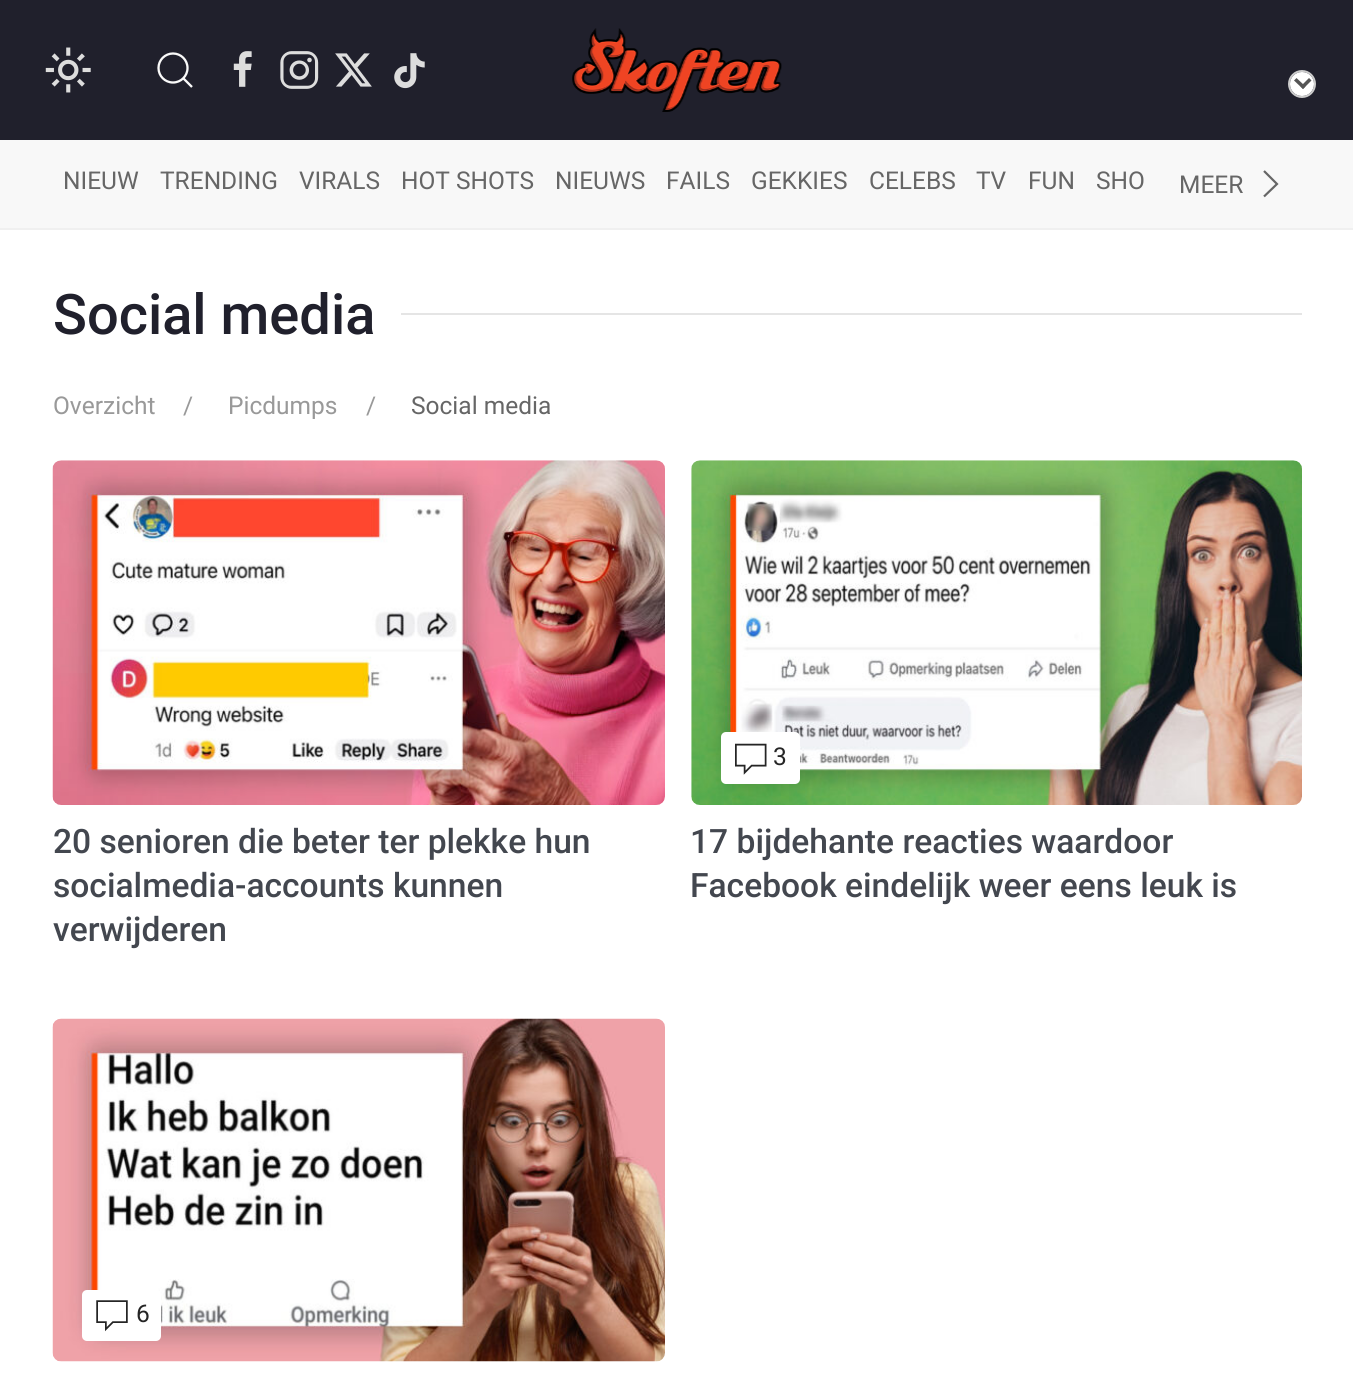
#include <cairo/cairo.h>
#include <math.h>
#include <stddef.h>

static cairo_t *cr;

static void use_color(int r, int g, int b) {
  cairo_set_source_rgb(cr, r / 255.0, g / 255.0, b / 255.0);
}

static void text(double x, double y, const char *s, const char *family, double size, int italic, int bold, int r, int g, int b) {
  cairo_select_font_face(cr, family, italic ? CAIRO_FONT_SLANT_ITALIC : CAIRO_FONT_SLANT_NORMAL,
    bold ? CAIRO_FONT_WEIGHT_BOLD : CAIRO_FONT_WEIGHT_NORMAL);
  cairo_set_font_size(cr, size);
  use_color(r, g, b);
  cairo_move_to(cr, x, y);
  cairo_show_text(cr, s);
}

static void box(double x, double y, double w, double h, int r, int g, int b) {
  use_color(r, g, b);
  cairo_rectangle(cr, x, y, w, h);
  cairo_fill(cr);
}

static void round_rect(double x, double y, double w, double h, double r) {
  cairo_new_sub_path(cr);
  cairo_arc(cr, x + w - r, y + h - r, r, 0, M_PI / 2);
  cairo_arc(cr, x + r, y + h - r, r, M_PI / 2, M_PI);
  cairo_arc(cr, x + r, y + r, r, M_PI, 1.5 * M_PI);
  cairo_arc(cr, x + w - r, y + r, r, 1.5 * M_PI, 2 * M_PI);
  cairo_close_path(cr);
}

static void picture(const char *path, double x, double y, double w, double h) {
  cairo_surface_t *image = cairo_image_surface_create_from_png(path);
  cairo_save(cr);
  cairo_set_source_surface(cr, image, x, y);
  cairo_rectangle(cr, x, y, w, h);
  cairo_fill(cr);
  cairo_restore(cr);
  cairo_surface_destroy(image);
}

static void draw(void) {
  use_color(255, 255, 255);
  cairo_paint(cr);
  box(0, 0, 1353, 140, 32, 32, 44);
  picture("img_01.png", 45, 47, 46, 46);
  cairo_arc(cr, 173, 68, 14.5, 0, 2 * M_PI);
  use_color(250, 250, 250);
  cairo_set_line_width(cr, 2.3);
  cairo_stroke(cr);
  cairo_new_path(cr);
  cairo_move_to(cr, 183.5, 78.5);
  cairo_line_to(cr, 192, 87);
  cairo_close_path(cr);
  cairo_stroke(cr);
  picture("img_02.png", 233, 51, 19, 36);
  picture("img_03.png", 280, 51, 39, 38);
  picture("img_04.png", 335, 53, 37, 34);
  picture("img_05.png", 394, 53, 31, 36);
  picture("img_06.png", 572, 28, 210, 84);
  cairo_arc(cr, 1302, 84, 13, 0, 2 * M_PI);
  use_color(204, 204, 204);
  cairo_set_line_width(cr, 2);
  cairo_stroke(cr);
  use_color(255, 255, 255);
  cairo_arc(cr, 1302, 84, 12, 0, 2 * M_PI);
  cairo_fill(cr);
  use_color(85, 85, 85);
  cairo_new_path(cr);
  cairo_move_to(cr, 1309, 78);
  cairo_line_to(cr, 1311.5, 80.5);
  cairo_line_to(cr, 1303, 89);
  cairo_line_to(cr, 1300.5, 86.5);
  cairo_close_path(cr);
  cairo_fill(cr);
  cairo_new_path(cr);
  cairo_move_to(cr, 1296.5, 78);
  cairo_line_to(cr, 1305.5, 86.5);
  cairo_line_to(cr, 1303, 89);
  cairo_line_to(cr, 1294, 80.5);
  cairo_close_path(cr);
  cairo_fill(cr);
  box(0, 140, 1353, 88, 248, 248, 248);
  box(0, 228, 1353, 2, 240, 240, 240);
  cairo_new_path(cr);
  cairo_move_to(cr, 1264, 171);
  cairo_line_to(cr, 1277, 184);
  cairo_line_to(cr, 1264, 196.5);
  use_color(102, 102, 102);
  cairo_set_line_width(cr, 2.2);
  cairo_stroke(cr);
  box(401, 313, 901, 2, 229, 229, 229);
  picture("img_07.png", 52, 460, 613, 345);
  picture("img_08.png", 691, 460, 611, 345);
  use_color(255, 255, 255);
  round_rect(721, 732, 79, 52, 5);
  cairo_fill(cr);
  picture("img_09.png", 735, 743, 32, 32);
  picture("img_10.png", 52, 1018, 613, 344);
  round_rect(82, 1290, 79, 51, 5);
  cairo_fill(cr);
  picture("img_11.png", 96, 1300, 32, 32);
  text(63, 189, "NIEUW", "Roboto", 24.5, 0, 0, 102, 102, 102);
  text(160, 189, "TRENDING", "Roboto", 24.5, 0, 0, 102, 102, 102);
  text(299, 189, "VIRALS", "Roboto", 24.5, 0, 0, 102, 102, 102);
  text(401, 189, "HOT SHOTS", "Roboto", 24.5, 0, 0, 102, 102, 102);
  text(555, 189, "NIEUWS", "Roboto", 24.5, 0, 0, 102, 102, 102);
  text(666, 189, "FAILS", "Roboto", 24.5, 0, 0, 102, 102, 102);
  text(751, 189, "GEKKIES", "Roboto", 24.5, 0, 0, 102, 102, 102);
  text(869, 189, "CELEBS", "Roboto", 24.5, 0, 0, 102, 102, 102);
  text(976, 189, "TV", "Roboto", 24.5, 0, 0, 102, 102, 102);
  text(1028, 189, "FUN", "Roboto", 24.5, 0, 0, 102, 102, 102);
  text(1096, 189, "SHO", "Roboto", 24.5, 0, 0, 102, 102, 102);
  text(1179, 193, "MEER", "Roboto", 24.5, 0, 0, 102, 102, 102);
  text(53, 334, "Social media", "Roboto Medium", 56, 0, 0, 32, 32, 44);
  text(53, 414, "Overzicht", "Roboto", 24.5, 0, 0, 153, 153, 153);
  text(183, 414, "/", "Roboto", 24.5, 0, 0, 153, 153, 153);
  text(228, 414, "Picdumps", "Roboto", 24.5, 0, 0, 153, 153, 153);
  text(366, 414, "/", "Roboto", 24.5, 0, 0, 153, 153, 153);
  text(411, 414, "Social media", "Roboto", 24.5, 0, 0, 102, 102, 102);
  text(53, 853, "20 senioren die beter ter plekke hun", "Roboto Medium", 33.6, 0, 0, 67, 71, 79);
  text(53, 897, "socialmedia-accounts kunnen", "Roboto Medium", 33.6, 0, 0, 67, 71, 79);
  text(53, 941, "verwijderen", "Roboto Medium", 33.6, 0, 0, 67, 71, 79);
  text(773, 765, "3", "Roboto", 24.5, 0, 0, 37, 37, 37);
  text(690, 853, "17 bijdehante reacties waardoor", "Roboto Medium", 33.6, 0, 0, 67, 71, 79);
  text(690, 897, "Facebook eindelijk weer eens leuk is", "Roboto Medium", 33.6, 0, 0, 67, 71, 79);
  text(136, 1322, "6", "Roboto", 24.5, 0, 0, 37, 37, 37);
}

int main(void) {
  cairo_surface_t *surface = cairo_image_surface_create(CAIRO_FORMAT_RGB24, 1353, 1385);
  cr = cairo_create(surface);
  cairo_font_options_t *options = cairo_font_options_create();
  cairo_font_options_set_hint_metrics(options, CAIRO_HINT_METRICS_OFF);
  cairo_font_options_set_hint_style(options, CAIRO_HINT_STYLE_NONE);
  cairo_set_font_options(cr, options);
  cairo_set_miter_limit(cr, 4);
  draw();
  cairo_surface_write_to_png(surface, "out.png");
  cairo_font_options_destroy(options);
  cairo_destroy(cr);
  cairo_surface_destroy(surface);
  return 0;
}
